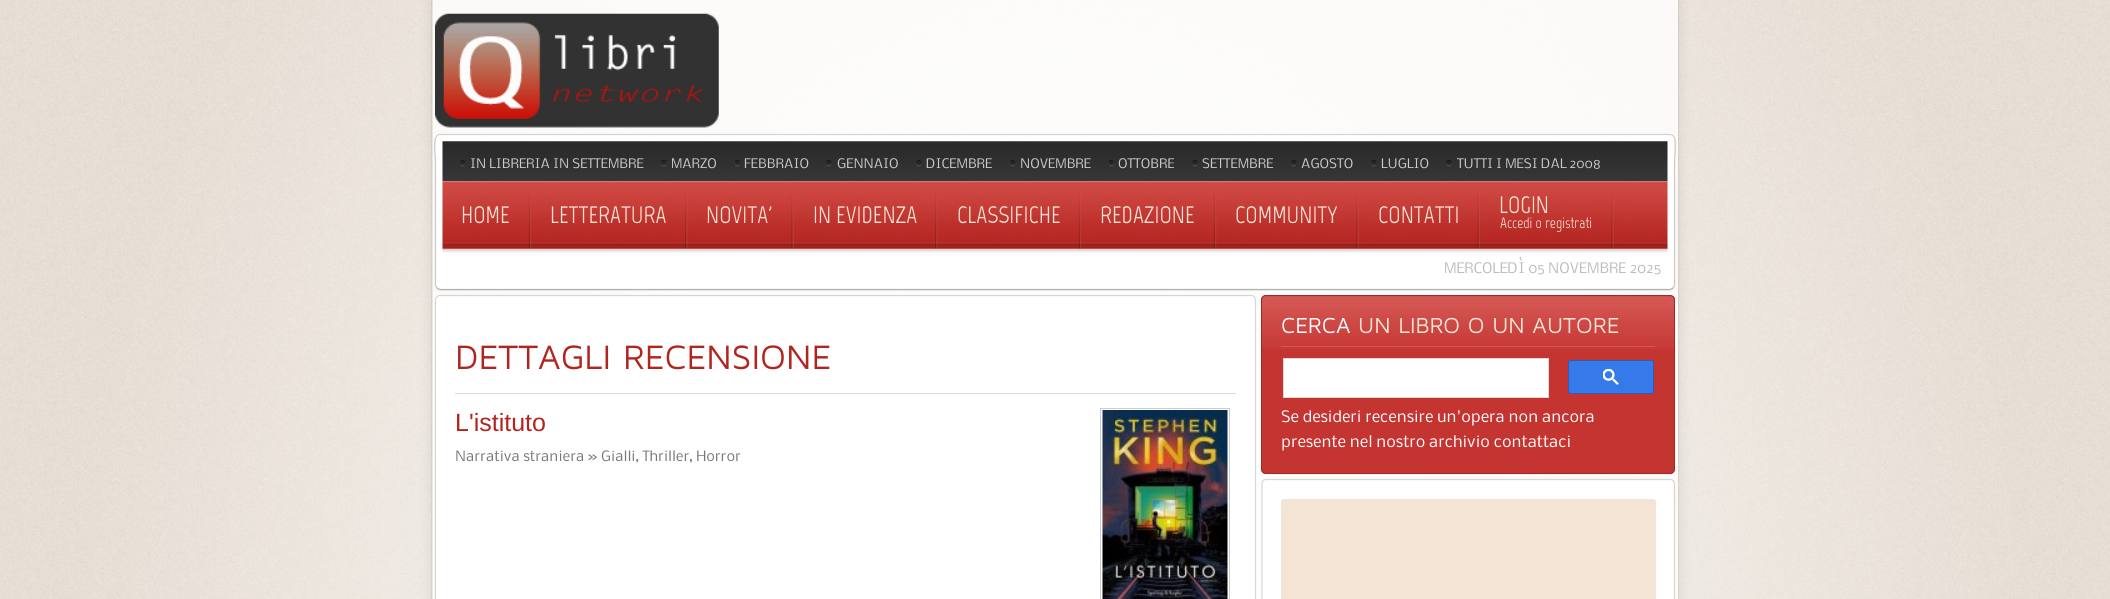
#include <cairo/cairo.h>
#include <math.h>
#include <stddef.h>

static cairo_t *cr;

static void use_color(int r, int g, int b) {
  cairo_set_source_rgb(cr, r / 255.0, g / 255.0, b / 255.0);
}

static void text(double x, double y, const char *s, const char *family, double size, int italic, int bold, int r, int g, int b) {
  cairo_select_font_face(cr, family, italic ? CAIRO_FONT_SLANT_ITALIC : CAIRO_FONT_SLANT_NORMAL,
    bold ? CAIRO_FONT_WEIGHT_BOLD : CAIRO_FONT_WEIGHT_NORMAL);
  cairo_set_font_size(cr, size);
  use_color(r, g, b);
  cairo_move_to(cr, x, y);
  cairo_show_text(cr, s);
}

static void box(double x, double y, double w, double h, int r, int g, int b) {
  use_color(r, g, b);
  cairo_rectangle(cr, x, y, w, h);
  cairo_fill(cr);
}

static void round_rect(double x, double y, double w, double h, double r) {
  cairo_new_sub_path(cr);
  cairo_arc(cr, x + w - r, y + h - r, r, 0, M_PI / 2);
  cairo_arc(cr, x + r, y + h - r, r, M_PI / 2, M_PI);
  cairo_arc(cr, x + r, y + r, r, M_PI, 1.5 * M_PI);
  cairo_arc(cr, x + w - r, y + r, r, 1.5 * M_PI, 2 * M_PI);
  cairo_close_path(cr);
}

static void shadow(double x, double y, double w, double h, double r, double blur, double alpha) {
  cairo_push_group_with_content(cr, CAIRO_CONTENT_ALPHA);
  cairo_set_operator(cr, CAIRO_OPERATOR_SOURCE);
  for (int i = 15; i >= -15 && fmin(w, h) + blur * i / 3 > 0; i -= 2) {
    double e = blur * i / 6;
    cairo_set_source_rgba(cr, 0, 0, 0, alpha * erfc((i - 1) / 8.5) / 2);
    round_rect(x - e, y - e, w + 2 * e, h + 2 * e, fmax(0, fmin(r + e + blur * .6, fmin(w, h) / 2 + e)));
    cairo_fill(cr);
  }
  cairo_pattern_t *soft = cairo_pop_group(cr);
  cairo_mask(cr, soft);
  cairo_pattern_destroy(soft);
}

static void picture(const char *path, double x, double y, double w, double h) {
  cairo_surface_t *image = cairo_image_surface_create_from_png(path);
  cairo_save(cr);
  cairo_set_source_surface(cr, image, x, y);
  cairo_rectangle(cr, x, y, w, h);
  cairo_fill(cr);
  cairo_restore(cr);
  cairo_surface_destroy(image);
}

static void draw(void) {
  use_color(255, 255, 255);
  cairo_paint(cr);
  picture("img_01.png", 0, 0, 2110, 599);
  cairo_save(cr);
  cairo_set_fill_rule(cr, CAIRO_FILL_RULE_EVEN_ODD);
  cairo_new_path(cr);
  cairo_move_to(cr, 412, 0);
  cairo_line_to(cr, 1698, 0);
  cairo_line_to(cr, 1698, 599);
  cairo_line_to(cr, 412, 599);
  cairo_close_path(cr);
  cairo_move_to(cr, 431, 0);
  cairo_line_to(cr, 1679, 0);
  cairo_line_to(cr, 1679, 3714);
  cairo_line_to(cr, 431, 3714);
  cairo_close_path(cr);
  cairo_clip(cr);
  use_color(0, 0, 0);
  shadow(431, 0, 1248, 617, 0, 6, 0.1);
  cairo_restore(cr);
  cairo_set_source_rgba(cr, 1, 1, 1, 0.8);
  cairo_rectangle(cr, 433, 0, 1245, 599);
  cairo_fill(cr);
  cairo_set_source_rgba(cr, 0, 0, 0, 0.1);
  cairo_rectangle(cr, 1678, 0, 1, 599);
  cairo_fill(cr);
  cairo_rectangle(cr, 431, 0, 1, 599);
  cairo_fill(cr);
  picture("img_02.png", 435, 13, 284, 115);
  use_color(0, 0, 0);
  shadow(435, 135, 1240, 156, 5, 0.5, 0.06);
  use_color(255, 255, 255);
  round_rect(436, 135, 1238, 154, 4);
  cairo_fill(cr);
  cairo_new_path(cr);
  cairo_move_to(cr, 1673, 288);
  cairo_line_to(cr, 1670, 289.5);
  cairo_line_to(cr, 440, 289.5);
  cairo_line_to(cr, 437, 288);
  cairo_set_source_rgba(cr, 0, 0, 0, 0.25);
  cairo_set_line_width(cr, 1.2);
  cairo_stroke(cr);
  cairo_new_path(cr);
  cairo_move_to(cr, 437, 288);
  cairo_line_to(cr, 435.5, 285);
  cairo_line_to(cr, 435.5, 163);
  cairo_curve_to(cr, 435.5, 154.5, 431.5, 134.5, 440, 134.5);
  cairo_line_to(cr, 1670, 134.5);
  cairo_curve_to(cr, 1678.5, 134.5, 1674.5, 154.5, 1674.5, 163);
  cairo_line_to(cr, 1674.5, 285);
  cairo_line_to(cr, 1673, 288);
  cairo_set_source_rgba(cr, 0, 0, 0, 0.15);
  cairo_stroke(cr);
  picture("img_03.png", 442, 141, 1226, 41);
  picture("img_04.png", 460, 160, 5, 7);
  picture("img_05.png", 661, 160, 6, 7);
  picture("img_06.png", 735, 160, 5, 7);
  picture("img_07.png", 826, 160, 6, 7);
  picture("img_08.png", 916, 160, 6, 7);
  picture("img_09.png", 1010, 160, 5, 7);
  picture("img_10.png", 1109, 160, 5, 7);
  picture("img_11.png", 1192, 160, 6, 7);
  picture("img_08.png", 1291, 160, 6, 7);
  picture("img_12.png", 1371, 160, 6, 7);
  picture("img_12.png", 1446, 160, 6, 7);
  picture("img_13.png", 442, 181, 1226, 72);
  picture("img_14.png", 528, 190, 4, 59);
  picture("img_15.png", 685, 189, 3, 60);
  picture("img_16.png", 791, 193, 3, 56);
  picture("img_17.png", 935, 189, 3, 60);
  picture("img_18.png", 1078, 190, 4, 59);
  picture("img_19.png", 1213, 190, 4, 59);
  picture("img_20.png", 1356, 193, 3, 56);
  picture("img_21.png", 1477, 191, 3, 58);
  picture("img_22.png", 1611, 193, 3, 56);
  use_color(255, 255, 255);
  round_rect(436, 296, 819, 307, 4);
  cairo_fill(cr);
  cairo_new_path(cr);
  cairo_move_to(cr, 437, 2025.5);
  cairo_curve_to(cr, 436, 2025, 435.5, 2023.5, 435.5, 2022.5);
  cairo_line_to(cr, 435.5, 300);
  cairo_curve_to(cr, 435.5, 299, 436, 297.5, 437, 297);
  cairo_curve_to(cr, 437.5, 296, 439, 295.5, 440, 295.5);
  cairo_line_to(cr, 1251, 295.5);
  cairo_curve_to(cr, 1252.5, 295.5, 1253.5, 296, 1254.5, 297);
  cairo_curve_to(cr, 1255, 297.5, 1255.5, 299, 1255.5, 300);
  cairo_line_to(cr, 1255.5, 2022.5);
  cairo_curve_to(cr, 1255.5, 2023.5, 1255, 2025, 1254.5, 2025.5);
  cairo_set_source_rgba(cr, 0, 0, 0, 0.15);
  cairo_stroke(cr);
  box(455, 393, 781, 1, 221, 221, 221);
  cairo_rectangle(cr, 1100.5, 408.5, 129, 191);
  use_color(204, 204, 204);
  cairo_set_line_width(cr, 1);
  cairo_stroke(cr);
  picture("img_23.png", 1102, 410, 126, 189);
  use_color(0, 0, 0);
  shadow(1261, 296, 414, 179, 5, 0.5, 0.06);
  use_color(196, 52, 49);
  round_rect(1261, 295, 414, 179, 5);
  cairo_fill(cr);
  picture("img_24.png", 1261, 296, 414, 53);
  round_rect(1261.5, 295.5, 413, 178, 4.5);
  use_color(157, 42, 39);
  cairo_stroke(cr);
  box(1281, 346, 374, 1, 203, 89, 80);
  use_color(255, 255, 255);
  cairo_rectangle(cr, 1283.5, 358.5, 265, 39);
  cairo_fill_preserve(cr);
  use_color(217, 217, 217);
  cairo_stroke(cr);
  use_color(53, 122, 232);
  round_rect(1568.5, 360.5, 85, 33, 2);
  cairo_fill_preserve(cr);
  use_color(47, 91, 183);
  cairo_stroke(cr);
  picture("img_25.png", 1603, 369, 16, 16);
  use_color(255, 255, 255);
  round_rect(1263, 480, 411, 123, 4);
  cairo_fill(cr);
  cairo_new_path(cr);
  cairo_move_to(cr, 1263, 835.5);
  cairo_curve_to(cr, 1262.5, 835, 1262, 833.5, 1262, 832.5);
  cairo_line_to(cr, 1262, 484);
  cairo_curve_to(cr, 1262, 482.5, 1262.5, 481.5, 1263, 480.5);
  cairo_curve_to(cr, 1264, 480, 1265, 479.5, 1266, 479.5);
  cairo_line_to(cr, 1670, 479.5);
  cairo_curve_to(cr, 1671, 479.5, 1672.5, 480, 1673, 480.5);
  cairo_curve_to(cr, 1674, 481.5, 1674.5, 482.5, 1674.5, 484);
  cairo_line_to(cr, 1674.5, 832.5);
  cairo_curve_to(cr, 1674.5, 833.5, 1674, 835, 1673, 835.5);
  cairo_set_source_rgba(cr, 0, 0, 0, 0.15);
  cairo_set_line_width(cr, 1.2);
  cairo_stroke(cr);
  use_color(244, 228, 213);
  round_rect(1281, 499, 375, 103, 2.5);
  cairo_fill(cr);
  text(470, 168, "IN LIBRERIA IN SETTEMBRE", "Nobile ExtraLight", 12.5, 0, 0, 204, 204, 204);
  text(671, 168, "MARZO", "Nobile ExtraLight", 12.5, 0, 0, 204, 204, 204);
  text(744, 168, "FEBBRAIO", "Nobile ExtraLight", 12.5, 0, 0, 204, 204, 204);
  text(837, 168, "GENNAIO", "Nobile ExtraLight", 12.5, 0, 0, 204, 204, 204);
  text(926, 168, "DICEMBRE", "Nobile ExtraLight", 12.5, 0, 0, 204, 204, 204);
  text(1020, 168, "NOVEMBRE", "Nobile ExtraLight", 12.5, 0, 0, 204, 204, 204);
  text(1118, 168, "OTTOBRE", "Nobile ExtraLight", 12.5, 0, 0, 204, 204, 204);
  text(1202, 168, "SETTEMBRE", "Nobile ExtraLight", 12.5, 0, 0, 204, 204, 204);
  text(1301, 168, "AGOSTO", "Nobile ExtraLight", 12.5, 0, 0, 204, 204, 204);
  text(1381, 168, "LUGLIO", "Nobile ExtraLight", 12.5, 0, 0, 204, 204, 204);
  text(1457, 168, "TUTTI I MESI DAL 2008", "Nobile ExtraLight", 12.5, 0, 0, 204, 204, 204);
  text(461, 223, "HOME", "Marvel", 23.75, 0, 0, 244, 228, 213);
  text(550, 223, "LETTERATURA", "Marvel", 23.75, 0, 0, 244, 228, 213);
  text(706, 223, "NOVITA'", "Marvel", 23.75, 0, 0, 244, 228, 213);
  text(813, 223, "IN EVIDENZA", "Marvel", 23.75, 0, 0, 244, 228, 213);
  text(957, 223, "CLASSIFICHE", "Marvel", 23.75, 0, 0, 244, 228, 213);
  text(1100, 223, "REDAZIONE", "Marvel", 23.75, 0, 0, 244, 228, 213);
  text(1235, 223, "COMMUNITY", "Marvel", 23.75, 0, 0, 244, 228, 213);
  text(1378, 223, "CONTATTI", "Marvel", 23.75, 0, 0, 244, 228, 213);
  text(1499, 213, "LOGIN", "Marvel", 23.75, 0, 0, 244, 228, 213);
  text(1500, 228, "Accedi o registrati", "Marvel", 15, 0, 0, 244, 228, 213);
  text(1444, 273, "MERCOLEDÌ 05 NOVEMBRE 2025", "Nobile ExtraLight", 13.75, 0, 0, 187, 187, 187);
  text(455, 369, "DETTAGLI RECENSIONE", "Maven Pro", 35, 0, 0, 178, 37, 31);
  text(455, 431, "L'istituto", "Liberation Sans", 25, 0, 0, 178, 37, 31);
  text(455, 461, "Narrativa straniera » Gialli, Thriller, Horror", "Nobile ExtraLight", 13.5, 0, 0, 119, 119, 119);
  text(1281, 333, "CERCA", "Maven Pro", 22.5, 0, 0, 255, 255, 255);
  text(1358, 333, "UN LIBRO O UN AUTORE", "Maven Pro", 22.5, 0, 0, 244, 228, 213);
  text(1281, 422, "Se desideri recensire un'opera non ancora", "Nobile ExtraLight", 15, 0, 0, 255, 255, 255);
  text(1281, 447, "presente nel nostro archivio contattaci", "Nobile ExtraLight", 15, 0, 0, 255, 255, 255);
}

int main(void) {
  cairo_surface_t *surface = cairo_image_surface_create(CAIRO_FORMAT_RGB24, 2110, 599);
  cr = cairo_create(surface);
  cairo_font_options_t *options = cairo_font_options_create();
  cairo_font_options_set_hint_metrics(options, CAIRO_HINT_METRICS_OFF);
  cairo_font_options_set_hint_style(options, CAIRO_HINT_STYLE_NONE);
  cairo_set_font_options(cr, options);
  cairo_set_miter_limit(cr, 4);
  draw();
  cairo_surface_write_to_png(surface, "out.png");
  cairo_font_options_destroy(options);
  cairo_destroy(cr);
  cairo_surface_destroy(surface);
  return 0;
}
